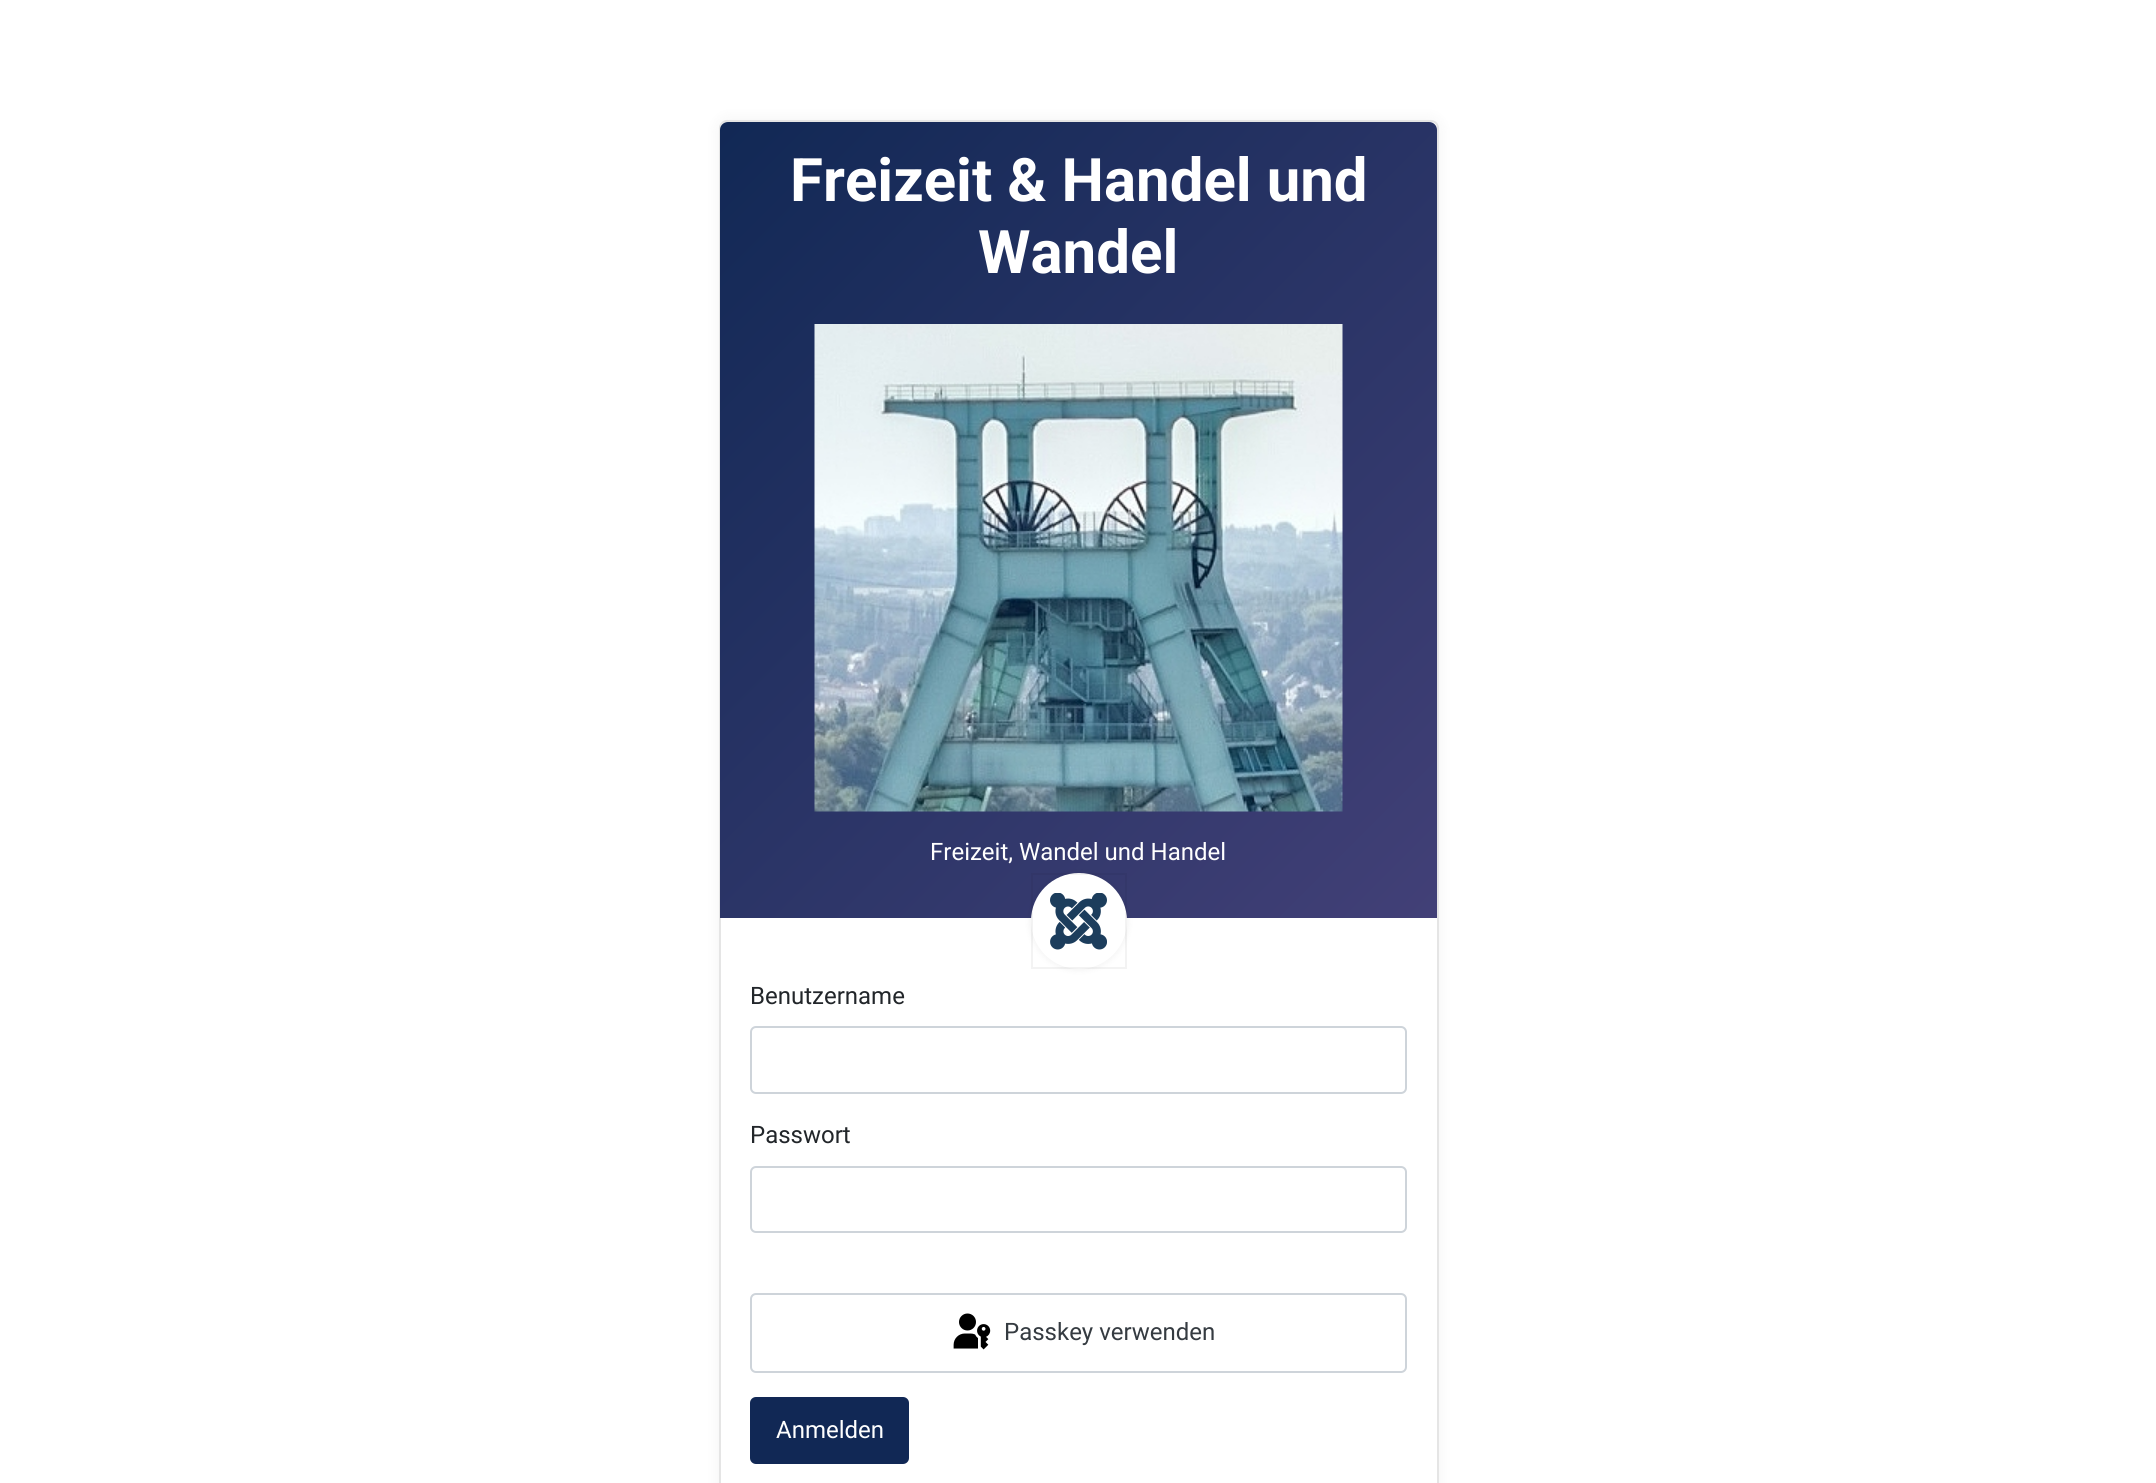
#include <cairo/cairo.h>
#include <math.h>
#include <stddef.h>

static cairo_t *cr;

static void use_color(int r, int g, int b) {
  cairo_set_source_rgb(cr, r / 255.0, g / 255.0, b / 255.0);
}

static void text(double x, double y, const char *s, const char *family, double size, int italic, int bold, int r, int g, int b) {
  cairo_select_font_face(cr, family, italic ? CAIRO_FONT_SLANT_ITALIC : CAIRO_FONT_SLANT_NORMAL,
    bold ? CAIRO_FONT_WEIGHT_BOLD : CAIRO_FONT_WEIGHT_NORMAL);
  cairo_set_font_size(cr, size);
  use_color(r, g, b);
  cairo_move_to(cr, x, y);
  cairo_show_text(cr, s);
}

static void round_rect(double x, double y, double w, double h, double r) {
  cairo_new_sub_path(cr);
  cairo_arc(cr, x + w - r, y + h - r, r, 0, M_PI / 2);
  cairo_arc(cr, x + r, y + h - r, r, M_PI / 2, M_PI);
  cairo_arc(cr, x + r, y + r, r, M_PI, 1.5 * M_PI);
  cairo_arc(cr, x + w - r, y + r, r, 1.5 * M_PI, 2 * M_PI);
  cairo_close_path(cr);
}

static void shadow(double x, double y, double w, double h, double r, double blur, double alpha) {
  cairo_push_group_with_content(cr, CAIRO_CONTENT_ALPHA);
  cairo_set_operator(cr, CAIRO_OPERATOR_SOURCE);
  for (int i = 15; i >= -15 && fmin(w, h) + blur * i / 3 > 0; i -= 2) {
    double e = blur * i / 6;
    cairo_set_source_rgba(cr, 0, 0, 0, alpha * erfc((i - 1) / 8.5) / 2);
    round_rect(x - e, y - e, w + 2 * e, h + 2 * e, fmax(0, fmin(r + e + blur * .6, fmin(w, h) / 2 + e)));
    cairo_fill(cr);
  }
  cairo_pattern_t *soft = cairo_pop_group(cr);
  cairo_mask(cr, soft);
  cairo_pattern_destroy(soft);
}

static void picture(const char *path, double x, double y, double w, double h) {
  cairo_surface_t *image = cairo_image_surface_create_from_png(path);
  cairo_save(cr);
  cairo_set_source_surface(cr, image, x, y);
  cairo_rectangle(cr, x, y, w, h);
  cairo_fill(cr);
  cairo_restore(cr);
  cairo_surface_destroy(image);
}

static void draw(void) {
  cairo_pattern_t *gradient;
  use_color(255, 255, 255);
  cairo_paint(cr);
  use_color(0, 0, 0);
  shadow(719, 120, 720, 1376, 8, 7.5, 0.05);
  use_color(255, 255, 255);
  round_rect(720, 121, 718, 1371, 7);
  cairo_fill_preserve(cr);
  use_color(229, 229, 229);
  cairo_stroke(cr);
  gradient = cairo_pattern_create_linear(700, 141, 1457, 898);
  cairo_pattern_add_color_stop_rgba(gradient, 0, 0.067, 0.157, 0.333, 1);
  cairo_pattern_add_color_stop_rgba(gradient, 1, 0.259, 0.251, 0.467, 1);
  cairo_set_source(cr, gradient);
  cairo_pattern_destroy(gradient);
  cairo_new_path(cr);
  cairo_move_to(cr, 728, 122);
  cairo_line_to(cr, 1429, 122);
  cairo_curve_to(cr, 1433.5, 122, 1437, 125.5, 1437, 130);
  cairo_line_to(cr, 1437, 918);
  cairo_line_to(cr, 720, 918);
  cairo_line_to(cr, 720, 130);
  cairo_curve_to(cr, 720, 125.5, 723.5, 122, 728, 122);
  cairo_close_path(cr);
  cairo_fill(cr);
  picture("img_01.png", 814, 324, 529, 488);
  use_color(0, 0, 0);
  shadow(1031, 873, 96, 96, 48, 4, 0.07);
  use_color(255, 255, 255);
  cairo_arc(cr, 1079, 921, 48, 0, 2 * M_PI);
  cairo_fill(cr);
  cairo_rectangle(cr, 1032, 874, 94, 94);
  cairo_set_source_rgba(cr, 0, 0, 0, 0.05);
  cairo_stroke(cr);
  picture("img_02.png", 1050, 893, 57, 57);
  round_rect(751, 1027, 655, 66, 5);
  use_color(206, 212, 218);
  cairo_stroke(cr);
  round_rect(751, 1167, 655, 65, 5);
  cairo_stroke(cr);
  round_rect(751, 1294, 655, 78, 5);
  cairo_stroke(cr);
  picture("img_03.png", 953, 1313, 38, 37);
  use_color(17, 40, 85);
  round_rect(751, 1398, 157, 65, 5);
  cairo_fill_preserve(cr);
  cairo_stroke(cr);
  text(790, 201, "Freizeit & Handel und", "Roboto", 60, 0, 1, 255, 255, 255);
  text(978, 273, "Wandel", "Roboto", 60, 0, 1, 255, 255, 255);
  text(930, 860, "Freizeit, Wandel und Handel", "Roboto", 24, 0, 0, 255, 255, 255);
  text(750, 1004, "Benutzername", "Roboto", 24, 0, 0, 34, 38, 42);
  text(750, 1143, "Passwort", "Roboto", 24, 0, 0, 34, 38, 42);
  text(1004, 1340, "Passkey verwenden", "Roboto", 24, 0, 0, 53, 59, 65);
  text(776, 1438, "Anmelden", "Roboto", 24, 0, 0, 255, 255, 255);
}

int main(void) {
  cairo_surface_t *surface = cairo_image_surface_create(CAIRO_FORMAT_RGB24, 2156, 1483);
  cr = cairo_create(surface);
  cairo_font_options_t *options = cairo_font_options_create();
  cairo_font_options_set_hint_metrics(options, CAIRO_HINT_METRICS_OFF);
  cairo_font_options_set_hint_style(options, CAIRO_HINT_STYLE_NONE);
  cairo_set_font_options(cr, options);
  cairo_set_miter_limit(cr, 4);
  draw();
  cairo_surface_write_to_png(surface, "out.png");
  cairo_font_options_destroy(options);
  cairo_destroy(cr);
  cairo_surface_destroy(surface);
  return 0;
}
